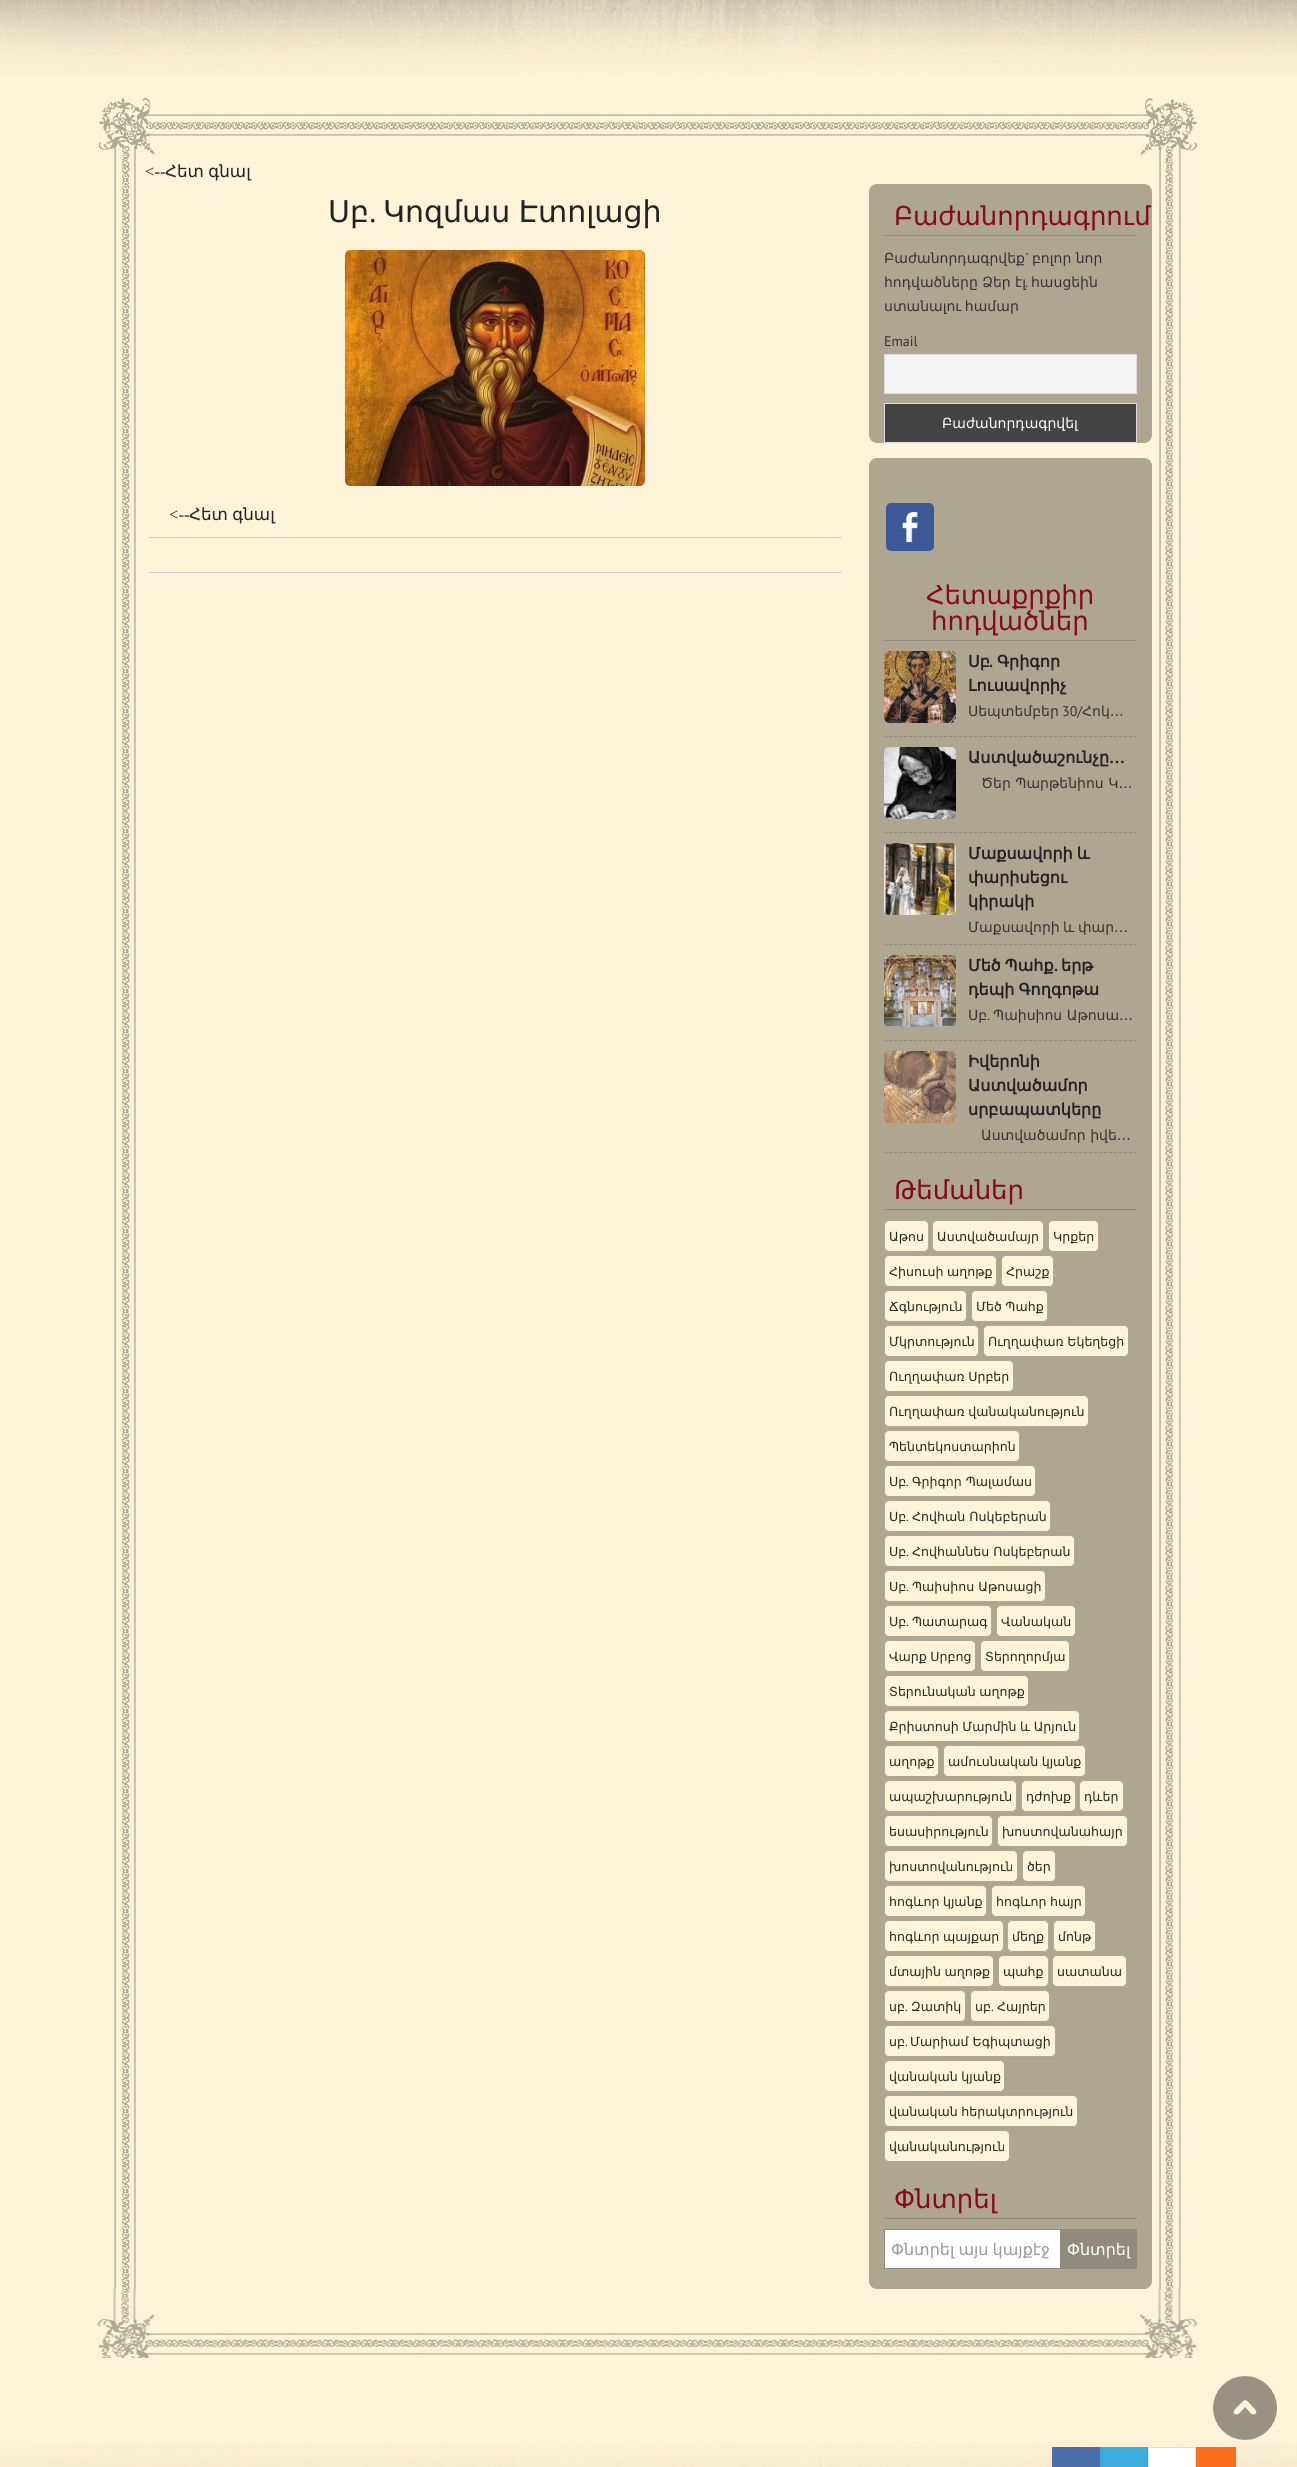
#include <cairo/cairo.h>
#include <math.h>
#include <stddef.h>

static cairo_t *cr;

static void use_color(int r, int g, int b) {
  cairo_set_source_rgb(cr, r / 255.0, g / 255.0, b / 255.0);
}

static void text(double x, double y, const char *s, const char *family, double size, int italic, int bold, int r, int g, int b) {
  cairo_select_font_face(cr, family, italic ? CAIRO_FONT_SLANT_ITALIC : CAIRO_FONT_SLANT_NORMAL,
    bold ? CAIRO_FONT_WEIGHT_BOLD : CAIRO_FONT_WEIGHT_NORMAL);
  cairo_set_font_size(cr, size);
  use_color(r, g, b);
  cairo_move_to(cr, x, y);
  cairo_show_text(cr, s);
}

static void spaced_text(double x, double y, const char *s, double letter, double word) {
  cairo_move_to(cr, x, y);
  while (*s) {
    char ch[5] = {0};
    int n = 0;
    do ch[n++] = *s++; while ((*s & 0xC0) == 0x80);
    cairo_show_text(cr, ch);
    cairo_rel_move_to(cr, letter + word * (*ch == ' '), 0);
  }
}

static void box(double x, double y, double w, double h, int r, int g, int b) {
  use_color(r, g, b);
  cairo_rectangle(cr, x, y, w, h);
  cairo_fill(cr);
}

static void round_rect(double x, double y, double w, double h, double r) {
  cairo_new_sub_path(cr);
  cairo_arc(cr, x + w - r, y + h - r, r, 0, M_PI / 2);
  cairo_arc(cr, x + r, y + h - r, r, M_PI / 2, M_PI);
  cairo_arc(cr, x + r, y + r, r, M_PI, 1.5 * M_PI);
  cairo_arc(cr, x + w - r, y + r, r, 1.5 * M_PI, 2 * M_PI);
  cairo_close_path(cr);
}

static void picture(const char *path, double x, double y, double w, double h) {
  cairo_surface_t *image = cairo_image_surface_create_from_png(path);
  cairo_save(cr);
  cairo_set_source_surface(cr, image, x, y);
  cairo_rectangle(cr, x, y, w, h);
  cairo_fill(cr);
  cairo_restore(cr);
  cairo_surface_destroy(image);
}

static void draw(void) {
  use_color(255, 243, 217);
  cairo_paint(cr);
  picture("img_01.png", 0, 0, 1297, 75);
  picture("img_02.png", 114, 156, 1067, 2133);
  picture("img_03.png", 99, 91, 1100, 65);
  picture("img_04.png", 121, 160, 1056, 24);
  picture("img_05.png", 345, 250, 300, 236);
  box(149, 537, 693, 1, 204, 204, 204);
  box(149, 572, 693, 1, 204, 204, 204);
  picture("img_13.png", 0, 2442, 1297, 25);
  box(1052, 2447, 48, 20, 75, 109, 170);
  box(1100, 2447, 48, 20, 58, 172, 222);
  box(1149, 2448, 46, 19, 255, 255, 255);
  box(1148, 2447, 48, 1, 224, 224, 224);
  box(1195, 2447, 1, 20, 224, 224, 224);
  box(1148, 2447, 1, 20, 224, 224, 224);
  box(1196, 2447, 40, 20, 251, 108, 30);
  use_color(174, 166, 144);
  round_rect(869, 184, 283, 259, 8);
  cairo_fill(cr);
  box(884, 235, 253, 1, 145, 139, 125);
  use_color(244, 244, 244);
  cairo_rectangle(cr, 884.5, 354.5, 252, 39);
  cairo_fill_preserve(cr);
  use_color(221, 221, 221);
  cairo_set_line_width(cr, 1);
  cairo_stroke(cr);
  use_color(68, 68, 68);
  cairo_rectangle(cr, 884.5, 403.5, 252, 39);
  cairo_fill_preserve(cr);
  use_color(221, 221, 221);
  cairo_stroke(cr);
  use_color(174, 166, 144);
  round_rect(869, 458, 283, 1831, 8);
  cairo_fill(cr);
  picture("img_06.png", 886, 503, 48, 48);
  box(884, 640, 253, 1, 145, 139, 125);
  cairo_new_path(cr);
  cairo_move_to(cr, 884, 736.5);
  cairo_line_to(cr, 1137, 736.5);
  use_color(146, 139, 120);
  cairo_set_dash(cr, (double[]){3, 2}, 2, 0);
  cairo_stroke(cr);
  picture("img_07.png", 884, 651, 72, 72);
  cairo_new_path(cr);
  cairo_move_to(cr, 884, 832.5);
  cairo_line_to(cr, 1137, 832.5);
  cairo_stroke(cr);
  picture("img_08.png", 884, 747, 72, 72);
  cairo_new_path(cr);
  cairo_move_to(cr, 884, 944.5);
  cairo_line_to(cr, 1137, 944.5);
  cairo_stroke(cr);
  picture("img_09.png", 884, 843, 72, 72);
  cairo_new_path(cr);
  cairo_move_to(cr, 884, 1040.5);
  cairo_line_to(cr, 1137, 1040.5);
  cairo_stroke(cr);
  picture("img_10.png", 884, 955, 72, 72);
  cairo_new_path(cr);
  cairo_move_to(cr, 884, 1152.5);
  cairo_line_to(cr, 1137, 1152.5);
  cairo_stroke(cr);
  picture("img_11.png", 884, 1051, 72, 72);
  box(884, 1209, 253, 1, 145, 139, 125);
  use_color(255, 243, 217);
  round_rect(884.5, 1220.5, 44, 31, 4.5);
  cairo_fill_preserve(cr);
  use_color(178, 169, 147);
  cairo_set_dash(cr, NULL, 0, 0);
  cairo_stroke(cr);
  use_color(255, 243, 217);
  round_rect(932.5, 1220.5, 111, 31, 4.5);
  cairo_fill_preserve(cr);
  use_color(178, 169, 147);
  cairo_stroke(cr);
  use_color(255, 243, 217);
  round_rect(1048.5, 1220.5, 50, 31, 4.5);
  cairo_fill_preserve(cr);
  use_color(178, 169, 147);
  cairo_stroke(cr);
  use_color(255, 243, 217);
  round_rect(884.5, 1255.5, 112, 31, 4.5);
  cairo_fill_preserve(cr);
  use_color(178, 169, 147);
  cairo_stroke(cr);
  use_color(255, 243, 217);
  round_rect(1001.5, 1255.5, 52, 31, 4.5);
  cairo_fill_preserve(cr);
  use_color(178, 169, 147);
  cairo_stroke(cr);
  use_color(255, 243, 217);
  round_rect(884.5, 1290.5, 82, 31, 4.5);
  cairo_fill_preserve(cr);
  use_color(178, 169, 147);
  cairo_stroke(cr);
  use_color(255, 243, 217);
  round_rect(971.5, 1290.5, 76, 31, 4.5);
  cairo_fill_preserve(cr);
  use_color(178, 169, 147);
  cairo_stroke(cr);
  use_color(255, 243, 217);
  round_rect(884.5, 1325.5, 94, 31, 4.5);
  cairo_fill_preserve(cr);
  use_color(178, 169, 147);
  cairo_stroke(cr);
  use_color(255, 243, 217);
  round_rect(983.5, 1325.5, 145, 31, 4.5);
  cairo_fill_preserve(cr);
  use_color(178, 169, 147);
  cairo_stroke(cr);
  use_color(255, 243, 217);
  round_rect(884.5, 1360.5, 129, 31, 4.5);
  cairo_fill_preserve(cr);
  use_color(178, 169, 147);
  cairo_stroke(cr);
  use_color(255, 243, 217);
  round_rect(884.5, 1395.5, 204, 31, 4.5);
  cairo_fill_preserve(cr);
  use_color(178, 169, 147);
  cairo_stroke(cr);
  use_color(255, 243, 217);
  round_rect(884.5, 1430.5, 135, 31, 4.5);
  cairo_fill_preserve(cr);
  use_color(178, 169, 147);
  cairo_stroke(cr);
  use_color(255, 243, 217);
  round_rect(884.5, 1465.5, 151, 31, 4.5);
  cairo_fill_preserve(cr);
  use_color(178, 169, 147);
  cairo_stroke(cr);
  use_color(255, 243, 217);
  round_rect(884.5, 1500.5, 166, 31, 4.5);
  cairo_fill_preserve(cr);
  use_color(178, 169, 147);
  cairo_stroke(cr);
  use_color(255, 243, 217);
  round_rect(884.5, 1535.5, 190, 31, 4.5);
  cairo_fill_preserve(cr);
  use_color(178, 169, 147);
  cairo_stroke(cr);
  use_color(255, 243, 217);
  round_rect(884.5, 1570.5, 161, 31, 4.5);
  cairo_fill_preserve(cr);
  use_color(178, 169, 147);
  cairo_stroke(cr);
  use_color(255, 243, 217);
  round_rect(884.5, 1605.5, 107, 31, 4.5);
  cairo_fill_preserve(cr);
  use_color(178, 169, 147);
  cairo_stroke(cr);
  use_color(255, 243, 217);
  round_rect(996.5, 1605.5, 79, 31, 4.5);
  cairo_fill_preserve(cr);
  use_color(178, 169, 147);
  cairo_stroke(cr);
  use_color(255, 243, 217);
  round_rect(884.5, 1640.5, 91, 31, 4.5);
  cairo_fill_preserve(cr);
  use_color(178, 169, 147);
  cairo_stroke(cr);
  use_color(255, 243, 217);
  round_rect(980.5, 1640.5, 89, 31, 4.5);
  cairo_fill_preserve(cr);
  use_color(178, 169, 147);
  cairo_stroke(cr);
  use_color(255, 243, 217);
  round_rect(884.5, 1675.5, 144, 31, 4.5);
  cairo_fill_preserve(cr);
  use_color(178, 169, 147);
  cairo_stroke(cr);
  use_color(255, 243, 217);
  round_rect(884.5, 1710.5, 195, 31, 4.5);
  cairo_fill_preserve(cr);
  use_color(178, 169, 147);
  cairo_stroke(cr);
  use_color(255, 243, 217);
  round_rect(884.5, 1745.5, 54, 31, 4.5);
  cairo_fill_preserve(cr);
  use_color(178, 169, 147);
  cairo_stroke(cr);
  use_color(255, 243, 217);
  round_rect(943.5, 1745.5, 142, 31, 4.5);
  cairo_fill_preserve(cr);
  use_color(178, 169, 147);
  cairo_stroke(cr);
  use_color(255, 243, 217);
  round_rect(884.5, 1780.5, 132, 31, 4.5);
  cairo_fill_preserve(cr);
  use_color(178, 169, 147);
  cairo_stroke(cr);
  use_color(255, 243, 217);
  round_rect(1021.5, 1780.5, 54, 31, 4.5);
  cairo_fill_preserve(cr);
  use_color(178, 169, 147);
  cairo_stroke(cr);
  use_color(255, 243, 217);
  round_rect(1079.5, 1780.5, 44, 31, 4.5);
  cairo_fill_preserve(cr);
  use_color(178, 169, 147);
  cairo_stroke(cr);
  use_color(255, 243, 217);
  round_rect(884.5, 1815.5, 108, 31, 4.5);
  cairo_fill_preserve(cr);
  use_color(178, 169, 147);
  cairo_stroke(cr);
  use_color(255, 243, 217);
  round_rect(997.5, 1815.5, 130, 31, 4.5);
  cairo_fill_preserve(cr);
  use_color(178, 169, 147);
  cairo_stroke(cr);
  use_color(255, 243, 217);
  round_rect(884.5, 1850.5, 133, 31, 4.5);
  cairo_fill_preserve(cr);
  use_color(178, 169, 147);
  cairo_stroke(cr);
  use_color(255, 243, 217);
  round_rect(1022.5, 1850.5, 33, 31, 4.5);
  cairo_fill_preserve(cr);
  use_color(178, 169, 147);
  cairo_stroke(cr);
  use_color(255, 243, 217);
  round_rect(884.5, 1885.5, 102, 31, 4.5);
  cairo_fill_preserve(cr);
  use_color(178, 169, 147);
  cairo_stroke(cr);
  use_color(255, 243, 217);
  round_rect(991.5, 1885.5, 94, 31, 4.5);
  cairo_fill_preserve(cr);
  use_color(178, 169, 147);
  cairo_stroke(cr);
  use_color(255, 243, 217);
  round_rect(884.5, 1920.5, 119, 31, 4.5);
  cairo_fill_preserve(cr);
  use_color(178, 169, 147);
  cairo_stroke(cr);
  use_color(255, 243, 217);
  round_rect(1007.5, 1920.5, 41, 31, 4.5);
  cairo_fill_preserve(cr);
  use_color(178, 169, 147);
  cairo_stroke(cr);
  use_color(255, 243, 217);
  round_rect(1053.5, 1920.5, 42, 31, 4.5);
  cairo_fill_preserve(cr);
  use_color(178, 169, 147);
  cairo_stroke(cr);
  use_color(255, 243, 217);
  round_rect(884.5, 1955.5, 109, 31, 4.5);
  cairo_fill_preserve(cr);
  use_color(178, 169, 147);
  cairo_stroke(cr);
  use_color(255, 243, 217);
  round_rect(998.5, 1955.5, 50, 31, 4.5);
  cairo_fill_preserve(cr);
  use_color(178, 169, 147);
  cairo_stroke(cr);
  use_color(255, 243, 217);
  round_rect(1052.5, 1955.5, 74, 31, 4.5);
  cairo_fill_preserve(cr);
  use_color(178, 169, 147);
  cairo_stroke(cr);
  use_color(255, 243, 217);
  round_rect(884.5, 1990.5, 81, 31, 4.5);
  cairo_fill_preserve(cr);
  use_color(178, 169, 147);
  cairo_stroke(cr);
  use_color(255, 243, 217);
  round_rect(970.5, 1990.5, 79, 31, 4.5);
  cairo_fill_preserve(cr);
  use_color(178, 169, 147);
  cairo_stroke(cr);
  use_color(255, 243, 217);
  round_rect(884.5, 2025.5, 171, 31, 4.5);
  cairo_fill_preserve(cr);
  use_color(178, 169, 147);
  cairo_stroke(cr);
  use_color(255, 243, 217);
  round_rect(884.5, 2060.5, 120, 31, 4.5);
  cairo_fill_preserve(cr);
  use_color(178, 169, 147);
  cairo_stroke(cr);
  use_color(255, 243, 217);
  round_rect(884.5, 2095.5, 193, 31, 4.5);
  cairo_fill_preserve(cr);
  use_color(178, 169, 147);
  cairo_stroke(cr);
  use_color(255, 243, 217);
  round_rect(884.5, 2130.5, 125, 31, 4.5);
  cairo_fill_preserve(cr);
  use_color(178, 169, 147);
  cairo_stroke(cr);
  box(884, 2218, 253, 1, 145, 139, 125);
  use_color(255, 255, 255);
  cairo_rectangle(cr, 884.5, 2229.5, 176, 39);
  cairo_fill_preserve(cr);
  use_color(145, 139, 125);
  cairo_stroke(cr);
  box(1061, 2229, 76, 40, 145, 139, 125);
  picture("img_12.png", 97, 2289, 1103, 69);
  picture("img_14.png", 1213, 2376, 64, 64);
  text(145, 177, "<--", "Liberation Serif", 16.75, 0, 0, 34, 34, 34);
  cairo_select_font_face(cr, "DejaVu Sans", CAIRO_FONT_SLANT_NORMAL, CAIRO_FONT_WEIGHT_NORMAL);
  spaced_text(165, 177, "Հետ գնալ", 0, -1);
  text(328, 222, "Սբ", "DejaVu Sans", 30, 0, 0, 34, 34, 34);
  text(369, 222, ".", "Liberation Serif", 30, 0, 0, 34, 34, 34);
  cairo_select_font_face(cr, "DejaVu Sans", CAIRO_FONT_SLANT_NORMAL, CAIRO_FONT_WEIGHT_NORMAL);
  spaced_text(383, 222, "Կոզմաս Էտոլացի", 0, -1);
  text(169, 520, "<--", "Liberation Serif", 16.75, 0, 0, 34, 34, 34);
  cairo_select_font_face(cr, "DejaVu Sans", CAIRO_FONT_SLANT_NORMAL, CAIRO_FONT_WEIGHT_NORMAL);
  spaced_text(189, 520, "Հետ գնալ", 0, -1);
  text(894, 225, "Բաժանորդագրում", "DejaVu Sans", 26, 0, 0, 134, 10, 26);
  text(884, 263, "Բաժանորդագրվեք", "DejaVu Sans", 14, 0, 0, 51, 51, 51);
  text(1025, 263, "`", "PT Sans", 14, 0, 0, 51, 51, 51);
  text(1032, 263, "բոլոր նոր", "DejaVu Sans", 14, 0, 0, 51, 51, 51);
  text(884, 287, "հոդվածները Ձեր էլ", "DejaVu Sans", 14, 0, 0, 51, 51, 51);
  text(1025, 287, ".", "PT Sans", 14, 0, 0, 51, 51, 51);
  text(1031, 287, "հասցեին", "DejaVu Sans", 14, 0, 0, 51, 51, 51);
  spaced_text(884, 311, "ստանալու համար", 0, -1);
  text(884, 346, "Email", "PT Sans", 14, 0, 0, 51, 51, 51);
  text(942, 428, "Բաժանորդագրվել", "DejaVu Sans", 14, 0, 0, 255, 255, 255);
  text(926, 604, "Հետաքրքիր", "DejaVu Sans", 26, 0, 0, 134, 10, 26);
  text(931, 630, "հոդվածներ", "DejaVu Sans", 26, 0, 0, 134, 10, 26);
  text(968, 667, "Սբ", "DejaVu Sans", 16, 0, 1, 34, 34, 34);
  text(989, 667, ".", "Liberation Serif", 16, 0, 1, 34, 34, 34);
  text(997, 667, "Գրիգոր", "DejaVu Sans", 16, 0, 1, 34, 34, 34);
  text(968, 691, "Լուսավորիչ", "DejaVu Sans", 16, 0, 1, 34, 34, 34);
  text(968, 716, "Սեպտեմբեր", "DejaVu Sans", 14, 0, 0, 51, 51, 51);
  text(1062, 716, "30/", "PT Sans", 14, 0, 0, 51, 51, 51);
  text(1082, 716, "Հոկ…", "DejaVu Sans", 14, 0, 0, 51, 51, 51);
  text(968, 763, "Աստվածաշունչը", "DejaVu Sans", 16, 0, 1, 34, 34, 34);
  text(1109, 763, "…", "Liberation Serif", 16, 0, 1, 34, 34, 34);
  text(981, 788, "Ծեր Պարթենիոս Կ…", "DejaVu Sans", 14, 0, 0, 51, 51, 51);
  cairo_select_font_face(cr, "DejaVu Sans", CAIRO_FONT_SLANT_NORMAL, CAIRO_FONT_WEIGHT_BOLD);
  cairo_set_font_size(cr, 16);
  use_color(34, 34, 34);
  spaced_text(968, 859, "Մաքսավորի և", 0, -1);
  text(968, 883, "փարիսեցու", "DejaVu Sans", 16, 0, 1, 34, 34, 34);
  text(968, 907, "կիրակի", "DejaVu Sans", 16, 0, 1, 34, 34, 34);
  cairo_select_font_face(cr, "DejaVu Sans", CAIRO_FONT_SLANT_NORMAL, CAIRO_FONT_WEIGHT_NORMAL);
  cairo_set_font_size(cr, 14);
  use_color(51, 51, 51);
  spaced_text(968, 932, "Մաքսավորի և փար…", 0, -1);
  cairo_select_font_face(cr, "DejaVu Sans", CAIRO_FONT_SLANT_NORMAL, CAIRO_FONT_WEIGHT_BOLD);
  cairo_set_font_size(cr, 16);
  use_color(34, 34, 34);
  spaced_text(968, 971, "Մեծ Պահք", 0, -1);
  text(1054, 971, ".", "Liberation Serif", 16, 0, 1, 34, 34, 34);
  text(1061, 971, "երթ", "DejaVu Sans", 16, 0, 1, 34, 34, 34);
  spaced_text(968, 995, "դեպի Գողգոթա", 0, -1);
  text(968, 1020, "Սբ", "DejaVu Sans", 14, 0, 0, 51, 51, 51);
  text(987, 1020, ".", "PT Sans", 14, 0, 0, 51, 51, 51);
  text(993, 1020, "Պաիսիոս Աթոսա…", "DejaVu Sans", 14, 0, 0, 51, 51, 51);
  text(968, 1067, "Իվերոնի", "DejaVu Sans", 16, 0, 1, 34, 34, 34);
  text(968, 1091, "Աստվածամոր", "DejaVu Sans", 16, 0, 1, 34, 34, 34);
  text(968, 1115, "սրբապատկերը", "DejaVu Sans", 16, 0, 1, 34, 34, 34);
  text(981, 1140, "Աստվածամոր իվե…", "DejaVu Sans", 14, 0, 0, 51, 51, 51);
  text(894, 1199, "Թեմաներ", "DejaVu Sans", 26, 0, 0, 134, 10, 26);
  text(889, 1241, "Աթոս", "DejaVu Sans", 12.6, 0, 0, 33, 43, 29);
  text(937, 1241, "Աստվածամայր", "DejaVu Sans", 12.6, 0, 0, 33, 43, 29);
  text(1053, 1241, "Կրքեր", "DejaVu Sans", 12.6, 0, 0, 33, 43, 29);
  spaced_text(889, 1276, "Հիսուսի աղոթք", 0, -0.5);
  text(1006, 1276, "Հրաշք", "DejaVu Sans", 12.6, 0, 0, 33, 43, 29);
  text(889, 1311, "Ճգնություն", "DejaVu Sans", 12.6, 0, 0, 33, 43, 29);
  spaced_text(976, 1311, "Մեծ Պահք", 0, -0.5);
  text(889, 1346, "Մկրտություն", "DejaVu Sans", 12.6, 0, 0, 33, 43, 29);
  spaced_text(988, 1346, "Ուղղափառ Եկեղեցի", 0, -0.5);
  spaced_text(889, 1381, "Ուղղափառ Սրբեր", 0, -0.5);
  spaced_text(889, 1416, "Ուղղափառ վանականություն", 0, -0.5);
  text(889, 1451, "Պենտեկոստարիոն", "DejaVu Sans", 12.6, 0, 0, 33, 43, 29);
  text(889, 1486, "Սբ", "DejaVu Sans", 12.6, 0, 0, 33, 43, 29);
  text(906, 1486, ".", "PT Sans", 12.6, 0, 0, 33, 43, 29);
  text(912, 1486, "Գրիգոր Պալամաս", "DejaVu Sans", 12.6, 0, 0, 33, 43, 29);
  text(889, 1521, "Սբ", "DejaVu Sans", 12.6, 0, 0, 33, 43, 29);
  text(906, 1521, ".", "PT Sans", 12.6, 0, 0, 33, 43, 29);
  text(912, 1521, "Հովհան Ոսկեբերան", "DejaVu Sans", 12.6, 0, 0, 33, 43, 29);
  text(889, 1556, "Սբ", "DejaVu Sans", 12.6, 0, 0, 33, 43, 29);
  text(906, 1556, ".", "PT Sans", 12.6, 0, 0, 33, 43, 29);
  text(912, 1556, "Հովհաննես Ոսկեբերան", "DejaVu Sans", 12.6, 0, 0, 33, 43, 29);
  text(889, 1591, "Սբ", "DejaVu Sans", 12.6, 0, 0, 33, 43, 29);
  text(906, 1591, ".", "PT Sans", 12.6, 0, 0, 33, 43, 29);
  text(912, 1591, "Պաիսիոս Աթոսացի", "DejaVu Sans", 12.6, 0, 0, 33, 43, 29);
  text(889, 1626, "Սբ", "DejaVu Sans", 12.6, 0, 0, 33, 43, 29);
  text(906, 1626, ".", "PT Sans", 12.6, 0, 0, 33, 43, 29);
  text(912, 1626, "Պատարագ", "DejaVu Sans", 12.6, 0, 0, 33, 43, 29);
  text(1001, 1626, "Վանական", "DejaVu Sans", 12.6, 0, 0, 33, 43, 29);
  spaced_text(889, 1661, "Վարք Սրբոց", 0, -0.5);
  text(985, 1661, "Տերողորմյա", "DejaVu Sans", 12.6, 0, 0, 33, 43, 29);
  spaced_text(889, 1696, "Տերունական աղոթք", 0, -0.5);
  spaced_text(889, 1731, "Քրիստոսի Մարմին և Արյուն", 0, -0.5);
  text(889, 1766, "աղոթք", "DejaVu Sans", 12.6, 0, 0, 33, 43, 29);
  spaced_text(948, 1766, "ամուսնական կյանք", 0, -0.5);
  text(889, 1801, "ապաշխարություն", "DejaVu Sans", 12.6, 0, 0, 33, 43, 29);
  text(1026, 1801, "դժոխք", "DejaVu Sans", 12.6, 0, 0, 33, 43, 29);
  text(1084, 1801, "դևեր", "DejaVu Sans", 12.6, 0, 0, 33, 43, 29);
  text(889, 1836, "եսասիրություն", "DejaVu Sans", 12.6, 0, 0, 33, 43, 29);
  text(1002, 1836, "խոստովանահայր", "DejaVu Sans", 12.6, 0, 0, 33, 43, 29);
  text(889, 1871, "խոստովանություն", "DejaVu Sans", 12.6, 0, 0, 33, 43, 29);
  text(1027, 1871, "ծեր", "DejaVu Sans", 12.6, 0, 0, 33, 43, 29);
  spaced_text(889, 1906, "հոգևոր կյանք", 0, -0.5);
  spaced_text(996, 1906, "հոգևոր հայր", 0, -0.5);
  spaced_text(889, 1941, "հոգևոր պայքար", 0, -0.5);
  text(1012, 1941, "մեղք", "DejaVu Sans", 12.6, 0, 0, 33, 43, 29);
  text(1058, 1941, "մոնթ", "DejaVu Sans", 12.6, 0, 0, 33, 43, 29);
  spaced_text(889, 1976, "մտային աղոթք", 0, -0.5);
  text(1003, 1976, "պահք", "DejaVu Sans", 12.6, 0, 0, 33, 43, 29);
  text(1057, 1976, "սատանա", "DejaVu Sans", 12.6, 0, 0, 33, 43, 29);
  text(889, 2011, "սբ", "DejaVu Sans", 12.6, 0, 0, 33, 43, 29);
  text(905, 2011, ".", "PT Sans", 12.6, 0, 0, 33, 43, 29);
  text(911, 2011, "Զատիկ", "DejaVu Sans", 12.6, 0, 0, 33, 43, 29);
  text(975, 2011, "սբ", "DejaVu Sans", 12.6, 0, 0, 33, 43, 29);
  text(991, 2011, ".", "PT Sans", 12.6, 0, 0, 33, 43, 29);
  text(997, 2011, "Հայրեր", "DejaVu Sans", 12.6, 0, 0, 33, 43, 29);
  text(889, 2046, "սբ", "DejaVu Sans", 12.6, 0, 0, 33, 43, 29);
  text(905, 2046, ".", "PT Sans", 12.6, 0, 0, 33, 43, 29);
  text(910, 2046, "Մարիամ Եգիպտացի", "DejaVu Sans", 12.6, 0, 0, 33, 43, 29);
  spaced_text(889, 2081, "վանական կյանք", 0, -0.5);
  spaced_text(889, 2116, "վանական հերակտրություն", 0, -0.5);
  text(889, 2151, "վանականություն", "DejaVu Sans", 12.6, 0, 0, 33, 43, 29);
  text(894, 2208, "Փնտրել", "DejaVu Sans", 26, 0, 0, 134, 10, 26);
  cairo_set_font_size(cr, 16);
  use_color(153, 153, 153);
  spaced_text(891, 2255, "Փնտրել այս կայքէջ", 0, -1);
  text(1067, 2255, "Փնտրել", "DejaVu Sans", 16, 0, 0, 255, 255, 255);
}

int main(void) {
  cairo_surface_t *surface = cairo_image_surface_create(CAIRO_FORMAT_RGB24, 1297, 2467);
  cr = cairo_create(surface);
  cairo_font_options_t *options = cairo_font_options_create();
  cairo_font_options_set_hint_metrics(options, CAIRO_HINT_METRICS_OFF);
  cairo_font_options_set_hint_style(options, CAIRO_HINT_STYLE_NONE);
  cairo_set_font_options(cr, options);
  cairo_set_miter_limit(cr, 4);
  draw();
  cairo_surface_write_to_png(surface, "out.png");
  cairo_font_options_destroy(options);
  cairo_destroy(cr);
  cairo_surface_destroy(surface);
  return 0;
}
